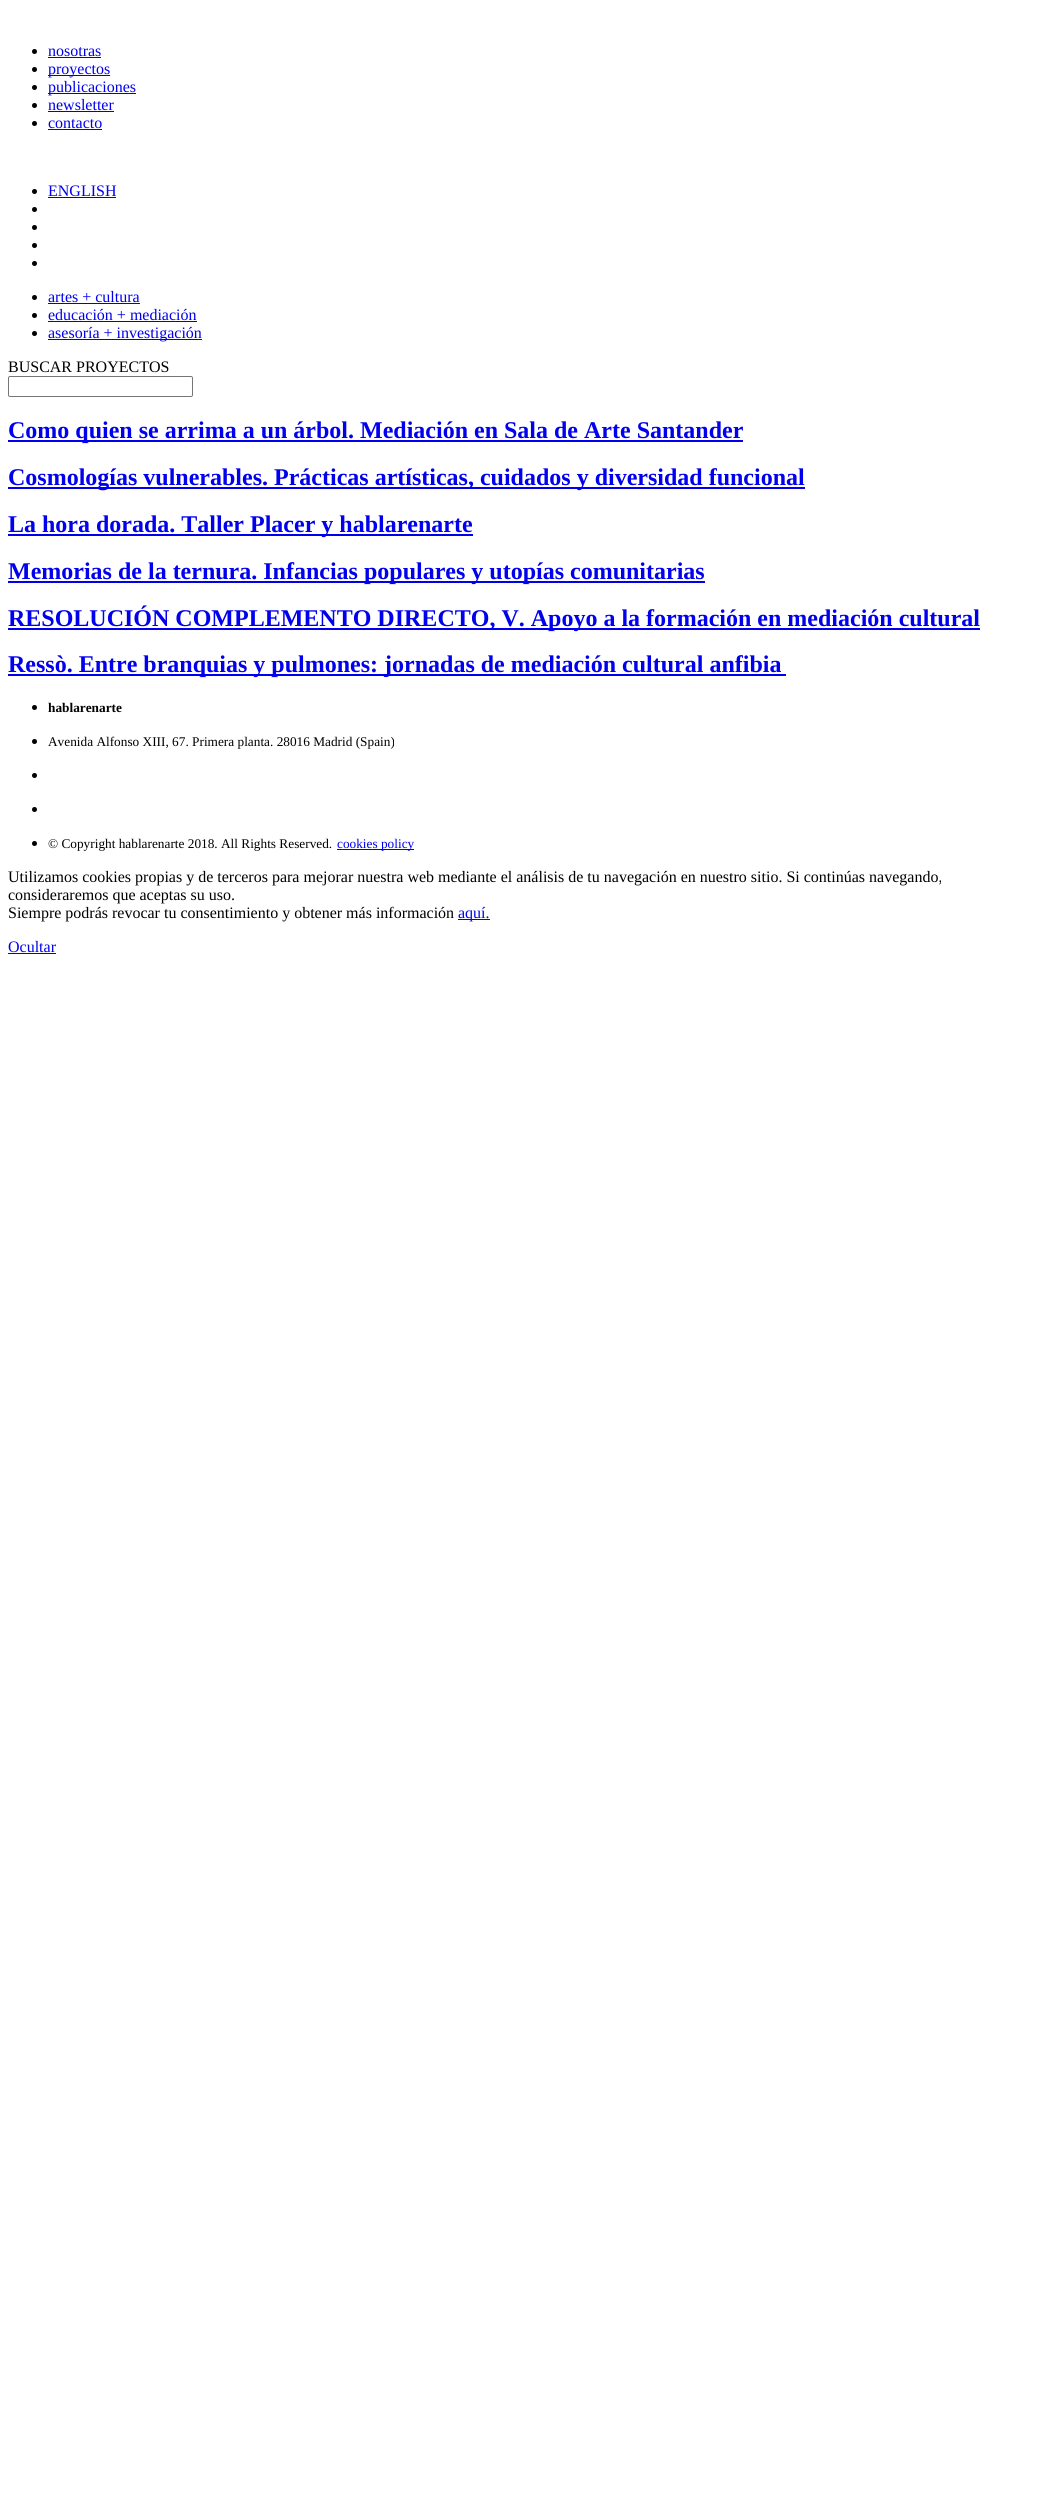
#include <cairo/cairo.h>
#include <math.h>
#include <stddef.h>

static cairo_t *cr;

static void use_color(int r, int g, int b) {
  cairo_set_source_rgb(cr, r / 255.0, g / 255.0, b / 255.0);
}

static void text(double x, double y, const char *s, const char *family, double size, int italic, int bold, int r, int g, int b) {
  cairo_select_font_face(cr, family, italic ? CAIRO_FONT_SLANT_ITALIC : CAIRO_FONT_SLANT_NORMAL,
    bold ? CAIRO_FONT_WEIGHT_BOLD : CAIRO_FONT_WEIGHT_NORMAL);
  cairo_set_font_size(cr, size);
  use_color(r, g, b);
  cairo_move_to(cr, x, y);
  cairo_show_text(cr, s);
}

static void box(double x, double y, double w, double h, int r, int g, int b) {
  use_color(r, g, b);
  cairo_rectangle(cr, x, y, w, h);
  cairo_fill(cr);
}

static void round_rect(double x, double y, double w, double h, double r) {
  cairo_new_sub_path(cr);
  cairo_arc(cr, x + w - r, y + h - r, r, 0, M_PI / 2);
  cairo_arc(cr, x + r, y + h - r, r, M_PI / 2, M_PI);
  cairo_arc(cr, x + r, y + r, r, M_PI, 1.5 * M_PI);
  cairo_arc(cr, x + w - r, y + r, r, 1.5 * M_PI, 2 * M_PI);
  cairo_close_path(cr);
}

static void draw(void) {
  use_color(255, 255, 255);
  cairo_paint(cr);
  use_color(0, 0, 0);
  cairo_arc(cr, 34.5, 51.5, 2.5, 0, 2 * M_PI);
  cairo_fill(cr);
  box(48, 57, 53, 1, 0, 0, 238);
  use_color(0, 0, 0);
  cairo_arc(cr, 34.5, 69.5, 2.5, 0, 2 * M_PI);
  cairo_fill(cr);
  box(48, 75, 62, 1, 0, 0, 238);
  use_color(0, 0, 0);
  cairo_arc(cr, 34.5, 87.5, 2.5, 0, 2 * M_PI);
  cairo_fill(cr);
  box(48, 93, 88, 1, 0, 0, 238);
  use_color(0, 0, 0);
  cairo_arc(cr, 34.5, 105.5, 2.5, 0, 2 * M_PI);
  cairo_fill(cr);
  box(48, 111, 66, 1, 0, 0, 238);
  use_color(0, 0, 0);
  cairo_arc(cr, 34.5, 123.5, 2.5, 0, 2 * M_PI);
  cairo_fill(cr);
  box(48, 129, 54, 1, 0, 0, 238);
  use_color(0, 0, 0);
  cairo_arc(cr, 34.5, 191.5, 2.5, 0, 2 * M_PI);
  cairo_fill(cr);
  box(48, 197, 68, 1, 0, 0, 238);
  use_color(0, 0, 0);
  cairo_arc(cr, 34.5, 209.5, 2.5, 0, 2 * M_PI);
  cairo_fill(cr);
  cairo_arc(cr, 34.5, 227.5, 2.5, 0, 2 * M_PI);
  cairo_fill(cr);
  cairo_arc(cr, 34.5, 245.5, 2.5, 0, 2 * M_PI);
  cairo_fill(cr);
  cairo_arc(cr, 34.5, 263.5, 2.5, 0, 2 * M_PI);
  cairo_fill(cr);
  cairo_arc(cr, 34.5, 297.5, 2.5, 0, 2 * M_PI);
  cairo_fill(cr);
  box(48, 303, 92, 1, 0, 0, 238);
  use_color(0, 0, 0);
  cairo_arc(cr, 34.5, 315.5, 2.5, 0, 2 * M_PI);
  cairo_fill(cr);
  box(48, 321, 149, 1, 0, 0, 238);
  use_color(0, 0, 0);
  cairo_arc(cr, 34.5, 333.5, 2.5, 0, 2 * M_PI);
  cairo_fill(cr);
  box(48, 339, 154, 1, 0, 0, 238);
  round_rect(8.5, 376.5, 184, 20, 1.5);
  use_color(118, 118, 118);
  cairo_set_line_width(cr, 1);
  cairo_stroke(cr);
  box(8, 440, 735, 2, 0, 0, 238);
  box(8, 487, 797, 2, 0, 0, 238);
  box(8, 534, 465, 2, 0, 0, 238);
  box(8, 581, 697, 2, 0, 0, 238);
  box(8, 628, 972, 2, 0, 0, 238);
  box(8, 674, 778, 2, 0, 0, 238);
  use_color(0, 0, 0);
  cairo_arc(cr, 34.5, 707.5, 2.5, 0, 2 * M_PI);
  cairo_fill(cr);
  cairo_arc(cr, 34.5, 741.5, 2.5, 0, 2 * M_PI);
  cairo_fill(cr);
  cairo_arc(cr, 34.5, 775.5, 2.5, 0, 2 * M_PI);
  cairo_fill(cr);
  cairo_arc(cr, 34.5, 809.5, 2.5, 0, 2 * M_PI);
  cairo_fill(cr);
  cairo_arc(cr, 34.5, 843.5, 2.5, 0, 2 * M_PI);
  cairo_fill(cr);
  box(337, 849, 77, 1, 0, 0, 238);
  box(458, 919, 32, 1, 0, 0, 238);
  box(8, 953, 48, 1, 0, 0, 238);
  text(48, 56, "nosotras", "Liberation Serif", 16, 0, 0, 0, 0, 238);
  text(48, 74, "proyectos", "Liberation Serif", 16, 0, 0, 0, 0, 238);
  text(48, 92, "publicaciones", "Liberation Serif", 16, 0, 0, 0, 0, 238);
  text(48, 110, "newsletter", "Liberation Serif", 16, 0, 0, 0, 0, 238);
  text(48, 128, "contacto", "Liberation Serif", 16, 0, 0, 0, 0, 238);
  text(48, 196, "ENGLISH", "Liberation Serif", 16, 0, 0, 0, 0, 238);
  text(48, 302, "artes + cultura", "Liberation Serif", 16, 0, 0, 0, 0, 238);
  text(48, 320, "educación + mediación", "Liberation Serif", 16, 0, 0, 0, 0, 238);
  text(48, 338, "asesoría + investigación", "Liberation Serif", 16, 0, 0, 0, 0, 238);
  text(8, 372, "BUSCAR PROYECTOS", "Liberation Serif", 16, 0, 0, 0, 0, 0);
  text(8, 438, "Como quien se arrima a un árbol. Mediación en Sala de Arte Santander", "Liberation Serif", 24, 0, 1, 0, 0, 238);
  text(8, 485, "Cosmologías vulnerables. Prácticas artísticas, cuidados y diversidad funcional", "Liberation Serif", 24, 0, 1, 0, 0, 238);
  text(8, 532, "La hora dorada. Taller Placer y hablarenarte", "Liberation Serif", 24, 0, 1, 0, 0, 238);
  text(8, 579, "Memorias de la ternura. Infancias populares y utopías comunitarias", "Liberation Serif", 24, 0, 1, 0, 0, 238);
  text(8, 626, "RESOLUCIÓN COMPLEMENTO DIRECTO, V. Apoyo a la formación en mediación cultural", "Liberation Serif", 24, 0, 1, 0, 0, 238);
  text(8, 672, "Ressò. Entre branquias y pulmones: jornadas de mediación cultural anfibia", "Liberation Serif", 24, 0, 1, 0, 0, 238);
  text(48, 712, "hablarenarte", "Liberation Serif", 13.3, 0, 1, 0, 0, 0);
  text(48, 746, "Avenida Alfonso XIII, 67. Primera planta. 28016 Madrid (Spain)", "Liberation Serif", 13.3, 0, 0, 0, 0, 0);
  text(48, 848, "© Copyright hablarenarte 2018. All Rights Reserved.", "Liberation Serif", 13.3, 0, 0, 0, 0, 0);
  text(337, 848, "cookies policy", "Liberation Serif", 13.3, 0, 0, 0, 0, 238);
  text(8, 882, "Utilizamos cookies propias y de terceros para mejorar nuestra web mediante el análisis de tu navegación en nuestro sitio. Si continúas navegando,", "Liberation Serif", 16, 0, 0, 0, 0, 0);
  text(8, 900, "consideraremos que aceptas su uso.", "Liberation Serif", 16, 0, 0, 0, 0, 0);
  text(8, 918, "Siempre podrás revocar tu consentimiento y obtener más información", "Liberation Serif", 16, 0, 0, 0, 0, 0);
  text(458, 918, "aquí.", "Liberation Serif", 16, 0, 0, 0, 0, 238);
  text(8, 952, "Ocultar", "Liberation Serif", 16, 0, 0, 0, 0, 238);
}

int main(void) {
  cairo_surface_t *surface = cairo_image_surface_create(CAIRO_FORMAT_RGB24, 1053, 2514);
  cr = cairo_create(surface);
  cairo_font_options_t *options = cairo_font_options_create();
  cairo_font_options_set_hint_metrics(options, CAIRO_HINT_METRICS_OFF);
  cairo_font_options_set_hint_style(options, CAIRO_HINT_STYLE_NONE);
  cairo_set_font_options(cr, options);
  cairo_set_miter_limit(cr, 4);
  draw();
  cairo_surface_write_to_png(surface, "out.png");
  cairo_font_options_destroy(options);
  cairo_destroy(cr);
  cairo_surface_destroy(surface);
  return 0;
}
